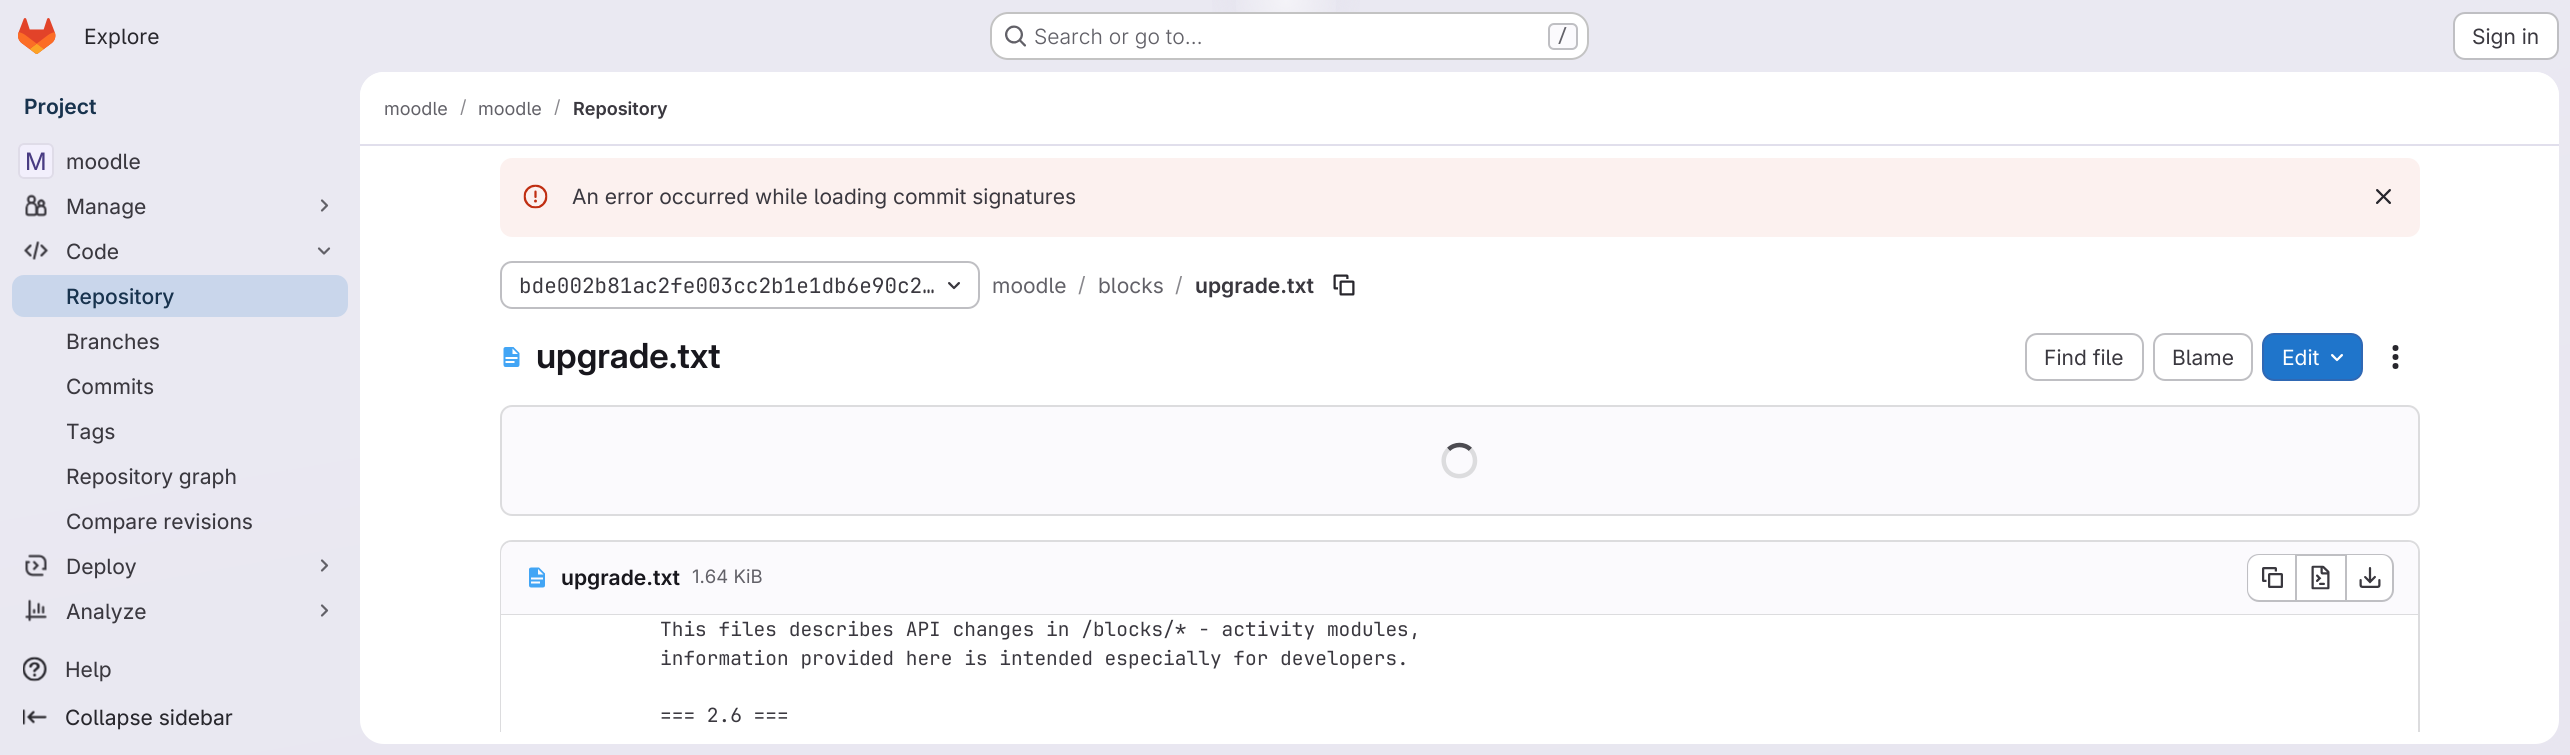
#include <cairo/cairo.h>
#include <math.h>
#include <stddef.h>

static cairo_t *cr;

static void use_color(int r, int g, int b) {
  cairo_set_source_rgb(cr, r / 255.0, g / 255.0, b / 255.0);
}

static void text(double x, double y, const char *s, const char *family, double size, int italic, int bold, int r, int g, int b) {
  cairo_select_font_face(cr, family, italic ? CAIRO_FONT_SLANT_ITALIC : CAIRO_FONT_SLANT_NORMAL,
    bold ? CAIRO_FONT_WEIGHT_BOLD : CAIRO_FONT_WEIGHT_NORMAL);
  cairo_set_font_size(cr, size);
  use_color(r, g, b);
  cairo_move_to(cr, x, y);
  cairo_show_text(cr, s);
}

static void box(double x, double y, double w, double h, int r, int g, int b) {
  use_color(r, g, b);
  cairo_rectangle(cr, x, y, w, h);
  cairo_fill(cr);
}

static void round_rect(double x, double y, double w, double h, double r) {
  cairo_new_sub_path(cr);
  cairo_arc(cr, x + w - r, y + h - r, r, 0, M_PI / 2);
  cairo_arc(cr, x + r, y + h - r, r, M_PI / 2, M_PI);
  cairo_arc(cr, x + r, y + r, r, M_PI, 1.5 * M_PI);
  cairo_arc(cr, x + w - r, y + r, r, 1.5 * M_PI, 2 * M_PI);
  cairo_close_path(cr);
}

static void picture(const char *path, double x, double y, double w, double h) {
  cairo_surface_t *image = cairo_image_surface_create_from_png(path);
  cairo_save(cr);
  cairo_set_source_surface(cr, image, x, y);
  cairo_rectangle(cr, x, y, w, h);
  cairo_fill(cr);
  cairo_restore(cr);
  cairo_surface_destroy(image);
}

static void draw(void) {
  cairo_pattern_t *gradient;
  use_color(255, 255, 255);
  cairo_paint(cr);
  gradient = cairo_pattern_create_linear(1389, 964, 1182, -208);
  cairo_pattern_add_color_stop_rgba(gradient, 0, 0.91, 0.902, 0.941, 1);
  cairo_pattern_add_color_stop_rgba(gradient, 0.7, 0.918, 0.914, 0.949, 1);
  cairo_set_source(cr, gradient);
  cairo_pattern_destroy(gradient);
  cairo_rectangle(cr, 0, 0, 2570, 755);
  cairo_fill(cr);
  gradient = cairo_pattern_create_radial(0, 0, 0, 0, 0, 1);
  cairo_pattern_set_matrix(gradient, &(cairo_matrix_t){1.0 / 1286, 0, 0, 1.0 / 756, -1.0 * 1286 / 1286, -1.0 * 0 / 756});
  cairo_pattern_add_color_stop_rgba(gradient, 0, 0.894, 0.886, 0.929, 1);
  cairo_pattern_add_color_stop_rgba(gradient, 0.08, 0.894, 0.886, 0.929, 0);
  cairo_set_source(cr, gradient);
  cairo_pattern_destroy(gradient);
  cairo_rectangle(cr, 1212, 0, 148, 12);
  cairo_fill(cr);
  gradient = cairo_pattern_create_radial(0, 0, 0, 0, 0, 1);
  cairo_pattern_set_matrix(gradient, &(cairo_matrix_t){1.0 / 1286, 0, 0, 1.0 / 756, -1.0 * 1286 / 1286, -1.0 * 0 / 756});
  cairo_pattern_add_color_stop_rgba(gradient, 0, 0.894, 0.886, 0.925, 1);
  cairo_pattern_add_color_stop_rgba(gradient, 0.06, 0.894, 0.886, 0.925, 0);
  cairo_set_source(cr, gradient);
  cairo_pattern_destroy(gradient);
  cairo_rectangle(cr, 1290, 11, 1, 1);
  cairo_fill(cr);
  gradient = cairo_pattern_create_radial(1286, 0, 0, 1286, 0, 1491);
  cairo_pattern_add_color_stop_rgba(gradient, 0, 1, 1, 1, 0.6);
  cairo_pattern_add_color_stop_rgba(gradient, 0.04, 1, 1, 1, 0);
  cairo_set_source(cr, gradient);
  cairo_pattern_destroy(gradient);
  cairo_rectangle(cr, 1236, 0, 100, 12);
  cairo_fill(cr);
  picture("img_01.png", 18, 18, 38, 36);
  use_color(255, 255, 255);
  round_rect(990, 12, 599, 48, 18);
  cairo_fill(cr);
  round_rect(991, 13, 597, 46, 17);
  cairo_set_source_rgba(cr, 0.02, 0.02, 0.024, 0.24);
  cairo_stroke(cr);
  picture("img_02.png", 1005, 25, 21, 22);
  use_color(251, 250, 253);
  round_rect(1549, 24, 28, 25, 5);
  cairo_fill_preserve(cr);
  use_color(191, 191, 195);
  cairo_stroke(cr);
  use_color(255, 255, 255);
  round_rect(2454, 13, 104, 46, 11);
  cairo_fill_preserve(cr);
  use_color(191, 191, 195);
  cairo_stroke(cr);
  use_color(255, 255, 255);
  round_rect(18, 143, 36, 36, 6);
  cairo_fill(cr);
  cairo_set_source_rgba(cr, 0.796, 0.733, 0.949, 0.24);
  round_rect(18, 143, 36, 36, 6);
  cairo_fill(cr);
  round_rect(19, 144, 34, 34, 5);
  use_color(223, 220, 232);
  cairo_stroke(cr);
  picture("img_03.png", 25, 194, 22, 23);
  cairo_new_path(cr);
  cairo_move_to(cr, 322, 200.5);
  cairo_line_to(cr, 327, 205.5);
  cairo_line_to(cr, 322, 210.5);
  use_color(98, 97, 104);
  cairo_set_line_width(cr, 2.2);
  cairo_set_line_cap(cr, CAIRO_LINE_CAP_ROUND);
  cairo_set_line_join(cr, CAIRO_LINE_JOIN_ROUND);
  cairo_stroke(cr);
  picture("img_04.png", 23, 241, 26, 19);
  cairo_new_path(cr);
  cairo_move_to(cr, 329, 248.5);
  cairo_line_to(cr, 324, 253.5);
  cairo_line_to(cr, 319, 248.5);
  cairo_stroke(cr);
  use_color(201, 214, 235);
  round_rect(12, 275, 336, 42, 12);
  cairo_fill(cr);
  picture("img_05.png", 25, 554, 22, 23);
  cairo_new_path(cr);
  cairo_move_to(cr, 322, 560.5);
  cairo_line_to(cr, 327, 565.5);
  cairo_line_to(cr, 322, 570.5);
  use_color(98, 97, 104);
  cairo_stroke(cr);
  picture("img_06.png", 25, 599, 22, 23);
  cairo_new_path(cr);
  cairo_move_to(cr, 322, 605.5);
  cairo_line_to(cr, 327, 610.5);
  cairo_line_to(cr, 322, 615.5);
  cairo_stroke(cr);
  picture("img_07.png", 23, 656, 24, 26);
  picture("img_08.png", 23, 709, 24, 16);
  use_color(255, 255, 255);
  round_rect(360, 72, 2199, 672, 24);
  cairo_fill(cr);
  cairo_new_path(cr);
  cairo_move_to(cr, 384, 72);
  cairo_line_to(cr, 2535, 72);
  cairo_curve_to(cr, 2548.5, 72, 2559, 82.5, 2559, 96);
  cairo_line_to(cr, 2559, 146);
  cairo_line_to(cr, 360, 146);
  cairo_line_to(cr, 360, 96);
  cairo_curve_to(cr, 360, 82.5, 370.5, 72, 384, 72);
  cairo_close_path(cr);
  cairo_fill(cr);
  box(360, 144, 2199, 2, 225, 223, 236);
  use_color(252, 241, 239);
  round_rect(500, 158, 1920, 79, 12);
  cairo_fill(cr);
  picture("img_09.png", 523, 184, 25, 25);
  picture("img_10.png", 2376, 189, 15, 15);
  round_rect(501, 262, 478, 46, 11);
  use_color(191, 191, 195);
  cairo_set_line_width(cr, 2);
  cairo_set_line_cap(cr, CAIRO_LINE_CAP_BUTT);
  cairo_set_line_join(cr, CAIRO_LINE_JOIN_MITER);
  cairo_stroke(cr);
  picture("img_11.png", 948, 282, 12, 8);
  picture("img_12.png", 1333, 274, 22, 22);
  picture("img_13.png", 503, 347, 17, 20);
  round_rect(2026, 334, 117, 46, 11);
  cairo_stroke(cr);
  round_rect(2154, 334, 98, 46, 11);
  cairo_stroke(cr);
  use_color(31, 117, 203);
  round_rect(2263, 334, 99, 46, 11);
  cairo_fill_preserve(cr);
  use_color(47, 104, 180);
  cairo_stroke(cr);
  picture("img_14.png", 2331, 354, 12, 8);
  picture("img_15.png", 2392, 345, 7, 24);
  use_color(251, 250, 253);
  round_rect(501, 406, 1918, 109, 11);
  cairo_fill_preserve(cr);
  use_color(220, 220, 222);
  cairo_stroke(cr);
  cairo_new_path(cr);
  cairo_move_to(cr, 1448.5, 449.5);
  cairo_curve_to(cr, 1454.5, 443.5, 1464.5, 443.5, 1470.5, 449.5);
  use_color(76, 75, 81);
  cairo_set_line_width(cr, 4.5);
  cairo_stroke(cr);
  cairo_new_path(cr);
  cairo_move_to(cr, 1470.5, 449.5);
  cairo_curve_to(cr, 1473.5, 452.5, 1475, 456.5, 1475, 460.5);
  cairo_curve_to(cr, 1475, 479.5, 1447.5, 482, 1444, 463.5);
  cairo_curve_to(cr, 1443, 458.5, 1444.5, 453, 1448.5, 449.5);
  use_color(220, 220, 222);
  cairo_stroke(cr);
  cairo_save(cr);
  cairo_rectangle(cr, 360, 146, 2199, 586);
  cairo_clip(cr);
  cairo_new_path(cr);
  cairo_move_to(cr, 512, 540);
  cairo_curve_to(cr, 505, 540, 500, 545, 500, 552);
  cairo_line_to(cr, 500, 744);
  cairo_line_to(cr, 502, 744);
  cairo_line_to(cr, 502, 552);
  cairo_curve_to(cr, 502, 546, 506, 542, 512, 542);
  cairo_line_to(cr, 2408, 542);
  cairo_curve_to(cr, 2414, 542, 2418, 546, 2418, 552);
  cairo_line_to(cr, 2418, 744);
  cairo_line_to(cr, 2420, 744);
  cairo_line_to(cr, 2420, 552);
  cairo_curve_to(cr, 2420, 545, 2415, 540, 2408, 540);
  cairo_close_path(cr);
  cairo_fill(cr);
  cairo_restore(cr);
  use_color(251, 250, 253);
  cairo_new_path(cr);
  cairo_move_to(cr, 512, 542);
  cairo_line_to(cr, 2407, 542);
  cairo_curve_to(cr, 2413, 542, 2418, 547, 2418, 553);
  cairo_line_to(cr, 2418, 615);
  cairo_line_to(cr, 501, 615);
  cairo_line_to(cr, 501, 553);
  cairo_curve_to(cr, 501, 547, 506, 542, 512, 542);
  cairo_close_path(cr);
  cairo_fill(cr);
  box(501, 614, 1917, 1, 220, 220, 222);
  picture("img_16.png", 529, 567, 16, 21);
  use_color(255, 255, 255);
  cairo_new_path(cr);
  cairo_move_to(cr, 2260, 555);
  cairo_line_to(cr, 2295, 555);
  cairo_line_to(cr, 2295, 600);
  cairo_line_to(cr, 2260, 600);
  cairo_curve_to(cr, 2254, 600, 2249, 595, 2249, 589);
  cairo_line_to(cr, 2249, 566);
  cairo_curve_to(cr, 2249, 560, 2254, 555, 2260, 555);
  cairo_close_path(cr);
  cairo_fill(cr);
  use_color(191, 191, 195);
  cairo_set_fill_rule(cr, CAIRO_FILL_RULE_EVEN_ODD);
  cairo_new_path(cr);
  cairo_move_to(cr, 2259, 554);
  cairo_line_to(cr, 2295, 554);
  cairo_line_to(cr, 2295, 602);
  cairo_line_to(cr, 2259, 602);
  cairo_curve_to(cr, 2252, 602, 2247, 596, 2247, 590);
  cairo_line_to(cr, 2247, 566);
  cairo_curve_to(cr, 2247, 559, 2252, 554, 2259, 554);
  cairo_close_path(cr);
  cairo_move_to(cr, 2259, 555);
  cairo_line_to(cr, 2295, 555);
  cairo_line_to(cr, 2295, 600);
  cairo_line_to(cr, 2259, 600);
  cairo_curve_to(cr, 2253, 600, 2248, 595, 2248, 590);
  cairo_line_to(cr, 2248, 566);
  cairo_curve_to(cr, 2248, 560, 2253, 555, 2259, 555);
  cairo_close_path(cr);
  cairo_fill(cr);
  picture("img_17.png", 2262, 567, 21, 21);
  box(2297, 556, 48, 44, 255, 255, 255);
  box(2297, 554, 48, 2, 191, 191, 195);
  box(2297, 600, 48, 2, 191, 191, 195);
  box(2295, 554, 2, 48, 191, 191, 195);
  picture("img_18.png", 2311, 565, 19, 25);
  use_color(255, 255, 255);
  cairo_new_path(cr);
  cairo_move_to(cr, 2346, 555);
  cairo_line_to(cr, 2382, 555);
  cairo_curve_to(cr, 2388, 555, 2393, 560, 2393, 566);
  cairo_line_to(cr, 2393, 589);
  cairo_curve_to(cr, 2393, 595, 2388, 600, 2382, 600);
  cairo_line_to(cr, 2346, 600);
  cairo_close_path(cr);
  cairo_fill(cr);
  use_color(191, 191, 195);
  cairo_new_path(cr);
  cairo_move_to(cr, 2346, 554);
  cairo_line_to(cr, 2382, 554);
  cairo_curve_to(cr, 2389, 554, 2394, 559, 2394, 566);
  cairo_line_to(cr, 2394, 590);
  cairo_curve_to(cr, 2394, 596, 2389, 602, 2382, 602);
  cairo_line_to(cr, 2346, 602);
  cairo_close_path(cr);
  cairo_move_to(cr, 2346, 555);
  cairo_line_to(cr, 2382, 555);
  cairo_curve_to(cr, 2388, 555, 2392, 560, 2392, 566);
  cairo_line_to(cr, 2392, 590);
  cairo_curve_to(cr, 2392, 595, 2388, 600, 2382, 600);
  cairo_line_to(cr, 2346, 600);
  cairo_close_path(cr);
  cairo_fill(cr);
  box(2345, 554, 2, 48, 191, 191, 195);
  picture("img_19.png", 2359, 567, 22, 21);
  box(501, 615, 1, 117, 255, 255, 255);
  text(84, 44, "Explore", "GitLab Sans", 21, 0, 0, 40, 39, 45);
  text(1034, 44, "Search or go to…", "GitLab Sans Light", 21, 0, 0, 98, 97, 104);
  text(1557, 42, "/", "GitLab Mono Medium", 18, 0, 0, 98, 97, 104);
  text(2472, 44, "Sign in", "GitLab Sans", 21, 0, 0, 58, 56, 63);
  text(24, 114, "Project", "GitLab Sans SemiBold", 21, 0, 0, 24, 51, 78);
  text(25, 170, "M", "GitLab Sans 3", 24, 0, 0, 73, 60, 131);
  text(66, 169, "moodle", "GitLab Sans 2", 21, 0, 0, 58, 56, 63);
  text(66, 214, "Manage", "GitLab Sans 2", 21, 0, 0, 58, 56, 63);
  text(66, 259, "Code", "GitLab Sans 2", 21, 0, 0, 58, 56, 63);
  text(66, 304, "Repository", "GitLab Sans Medium", 21, 0, 0, 24, 51, 78);
  text(66, 349, "Branches", "GitLab Sans 2", 21, 0, 0, 58, 56, 63);
  text(66, 394, "Commits", "GitLab Sans 2", 21, 0, 0, 58, 56, 63);
  text(66, 439, "Tags", "GitLab Sans 2", 21, 0, 0, 58, 56, 63);
  text(66, 484, "Repository graph", "GitLab Sans 2", 21, 0, 0, 58, 56, 63);
  text(66, 529, "Compare revisions", "GitLab Sans 2", 21, 0, 0, 58, 56, 63);
  text(66, 574, "Deploy", "GitLab Sans 2", 21, 0, 0, 58, 56, 63);
  text(66, 619, "Analyze", "GitLab Sans 2", 21, 0, 0, 58, 56, 63);
  text(65, 677, "Help", "GitLab Sans 2", 21, 0, 0, 58, 56, 63);
  text(65, 725, "Collapse sidebar", "GitLab Sans 2", 21, 0, 0, 40, 39, 45);
  text(384, 115, "moodle", "GitLab Sans", 18, 0, 0, 98, 97, 104);
  text(460, 113, "/", "GitLab Sans", 18, 0, 0, 137, 136, 141);
  text(478, 115, "moodle", "GitLab Sans", 18, 0, 0, 98, 97, 104);
  text(554, 113, "/", "GitLab Sans", 18, 0, 0, 137, 136, 141);
  text(573, 115, "Repository", "GitLab Sans SemiBold", 18, 0, 0, 58, 56, 63);
  text(572, 204, "An error occurred while loading commit signatures", "GitLab Sans", 21, 0, 0, 58, 56, 63);
  text(519, 293, "bde002b81ac2fe003cc2b1e1db6e90c2…", "GitLab Mono", 21, 0, 0, 58, 56, 63);
  text(992, 293, "moodle", "GitLab Sans", 21, 0, 0, 98, 97, 104);
  text(1078, 292, "/", "GitLab Sans", 21, 0, 0, 137, 136, 141);
  text(1098, 293, "blocks", "GitLab Sans", 21, 0, 0, 98, 97, 104);
  text(1175, 292, "/", "GitLab Sans", 21, 0, 0, 137, 136, 141);
  text(1195, 293, "upgrade.txt", "GitLab Sans SemiBold", 21, 0, 0, 58, 56, 63);
  text(536, 368, "upgrade.txt", "GitLab Sans 2 SemiBold", 34.5, 0, 0, 24, 23, 29);
  text(2044, 365, "Find file", "GitLab Sans", 21, 0, 0, 58, 56, 63);
  text(2172, 365, "Blame", "GitLab Sans", 21, 0, 0, 58, 56, 63);
  text(2282, 365, "Edit", "GitLab Sans", 21, 0, 0, 255, 255, 255);
  text(561, 585, "upgrade.txt", "GitLab Sans SemiBold", 21, 0, 0, 24, 23, 29);
  text(692, 583, "1.64 KiB", "GitLab Sans", 18.5, 0, 0, 98, 97, 104);
  text(660, 636, "This files describes API changes in /blocks/* - activity modules,", "GitLab Mono", 19.5, 0, 0, 58, 56, 63);
  text(660, 665, "information provided here is intended especially for developers.", "GitLab Mono", 19.5, 0, 0, 58, 56, 63);
  text(660, 722, "=== 2.6 ===", "GitLab Mono", 19.5, 0, 0, 58, 56, 63);
}

int main(void) {
  cairo_surface_t *surface = cairo_image_surface_create(CAIRO_FORMAT_RGB24, 2570, 755);
  cr = cairo_create(surface);
  cairo_font_options_t *options = cairo_font_options_create();
  cairo_font_options_set_hint_metrics(options, CAIRO_HINT_METRICS_OFF);
  cairo_font_options_set_hint_style(options, CAIRO_HINT_STYLE_NONE);
  cairo_set_font_options(cr, options);
  cairo_set_miter_limit(cr, 4);
  draw();
  cairo_surface_write_to_png(surface, "out.png");
  cairo_font_options_destroy(options);
  cairo_destroy(cr);
  cairo_surface_destroy(surface);
  return 0;
}
